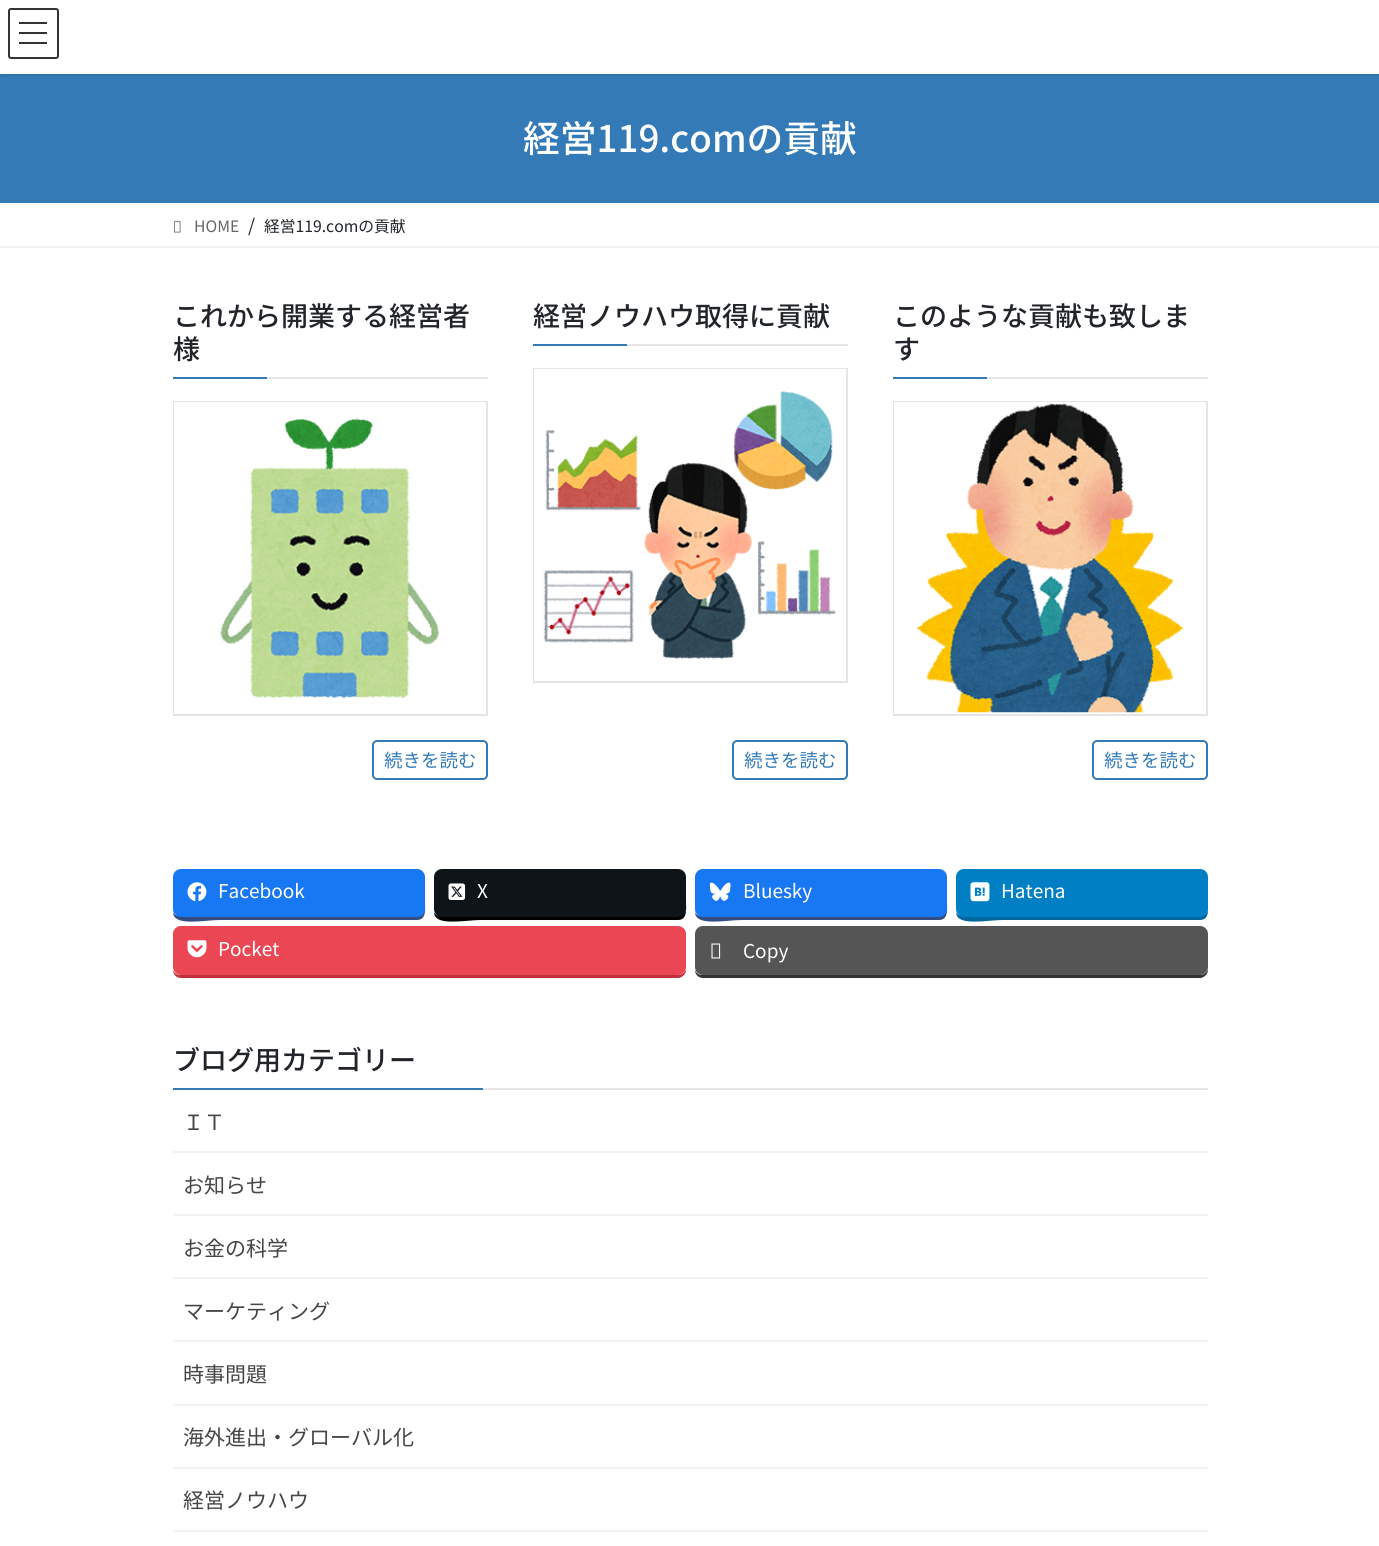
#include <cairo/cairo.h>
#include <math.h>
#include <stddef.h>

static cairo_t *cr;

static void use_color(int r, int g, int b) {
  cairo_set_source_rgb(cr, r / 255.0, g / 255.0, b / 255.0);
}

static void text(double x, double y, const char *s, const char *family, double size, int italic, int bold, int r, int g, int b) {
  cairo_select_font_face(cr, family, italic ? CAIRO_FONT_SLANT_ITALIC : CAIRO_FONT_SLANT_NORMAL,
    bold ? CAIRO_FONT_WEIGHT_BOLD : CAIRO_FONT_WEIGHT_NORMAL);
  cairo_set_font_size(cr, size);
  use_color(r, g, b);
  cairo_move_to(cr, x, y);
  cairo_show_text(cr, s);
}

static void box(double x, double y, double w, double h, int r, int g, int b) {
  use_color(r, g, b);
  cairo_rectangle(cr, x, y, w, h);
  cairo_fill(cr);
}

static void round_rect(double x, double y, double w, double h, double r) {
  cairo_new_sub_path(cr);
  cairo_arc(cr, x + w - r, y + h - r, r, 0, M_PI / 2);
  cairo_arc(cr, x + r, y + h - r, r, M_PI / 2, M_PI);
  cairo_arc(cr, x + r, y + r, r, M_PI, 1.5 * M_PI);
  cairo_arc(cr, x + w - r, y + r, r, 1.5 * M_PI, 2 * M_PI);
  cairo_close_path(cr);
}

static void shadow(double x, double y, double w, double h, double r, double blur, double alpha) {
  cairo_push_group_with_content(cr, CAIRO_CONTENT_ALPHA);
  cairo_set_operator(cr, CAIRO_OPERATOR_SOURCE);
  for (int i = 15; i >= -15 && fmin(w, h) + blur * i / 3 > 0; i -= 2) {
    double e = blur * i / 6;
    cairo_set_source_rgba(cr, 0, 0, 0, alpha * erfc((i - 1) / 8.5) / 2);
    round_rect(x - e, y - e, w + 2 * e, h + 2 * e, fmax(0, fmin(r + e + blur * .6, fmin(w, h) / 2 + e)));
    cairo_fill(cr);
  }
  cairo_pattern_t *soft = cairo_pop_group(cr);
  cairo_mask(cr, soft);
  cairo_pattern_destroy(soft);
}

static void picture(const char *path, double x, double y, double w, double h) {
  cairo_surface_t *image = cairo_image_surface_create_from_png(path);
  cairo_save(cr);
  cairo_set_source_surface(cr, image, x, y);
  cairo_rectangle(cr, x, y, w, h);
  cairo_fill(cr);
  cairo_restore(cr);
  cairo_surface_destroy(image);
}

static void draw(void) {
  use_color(255, 255, 255);
  cairo_paint(cr);
  box(0, 74, 1379, 129, 51, 122, 183);
  use_color(0, 0, 0);
  shadow(0, 2, 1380, 73, 0, 2, 0.1);
  box(0, 0, 1379, 74, 255, 255, 255);
  box(19, 22, 28, 2, 51, 51, 51);
  box(19, 32, 28, 2, 51, 51, 51);
  box(19, 42, 28, 2, 51, 51, 51);
  round_rect(9, 9, 49, 49, 2);
  cairo_stroke(cr);
  box(0, 246, 1379, 2, 242, 242, 242);
  picture("img_01.png", 174, 221, 7, 12);
  box(267, 377, 221, 2, 230, 230, 230);
  box(173, 377, 94, 2, 51, 122, 183);
  cairo_rectangle(cr, 174, 402, 313, 313);
  use_color(229, 229, 229);
  cairo_stroke(cr);
  cairo_rectangle(cr, 175, 403, 310, 310);
  use_color(255, 255, 255);
  cairo_stroke(cr);
  picture("img_02.png", 219, 418, 221, 281);
  round_rect(373, 741, 114, 38, 4);
  use_color(51, 122, 183);
  cairo_stroke(cr);
  box(627, 344, 221, 2, 230, 230, 230);
  box(533, 344, 94, 2, 51, 122, 183);
  cairo_rectangle(cr, 534, 369, 313, 313);
  use_color(229, 229, 229);
  cairo_stroke(cr);
  cairo_rectangle(cr, 535, 370, 310, 310);
  use_color(255, 255, 255);
  cairo_stroke(cr);
  picture("img_03.png", 543, 391, 294, 268);
  round_rect(733, 741, 114, 38, 4);
  use_color(51, 122, 183);
  cairo_stroke(cr);
  box(987, 377, 221, 2, 230, 230, 230);
  box(893, 377, 94, 2, 51, 122, 183);
  cairo_rectangle(cr, 894, 402, 313, 313);
  use_color(229, 229, 229);
  cairo_stroke(cr);
  cairo_rectangle(cr, 895, 403, 310, 310);
  use_color(255, 255, 255);
  cairo_stroke(cr);
  picture("img_04.png", 916, 403, 268, 310);
  round_rect(1093, 741, 114, 38, 4);
  use_color(51, 122, 183);
  cairo_stroke(cr);
  use_color(52, 78, 132);
  cairo_new_path(cr);
  cairo_move_to(cr, 173, 912);
  cairo_curve_to(cr, 173, 927, 204, 920, 220, 920);
  cairo_line_to(cr, 417, 920);
  cairo_curve_to(cr, 427, 920, 425, 908, 425, 901);
  cairo_line_to(cr, 424, 877);
  cairo_line_to(cr, 424, 909);
  cairo_curve_to(cr, 424, 913, 421, 916, 417, 916);
  cairo_line_to(cr, 180, 916);
  cairo_curve_to(cr, 177, 916, 174, 915, 173, 912);
  cairo_close_path(cr);
  cairo_fill(cr);
  use_color(24, 119, 242);
  round_rect(173, 869, 252, 48, 8);
  cairo_fill(cr);
  picture("img_05.png", 187, 882, 20, 20);
  use_color(0, 0, 0);
  cairo_new_path(cr);
  cairo_move_to(cr, 434, 912);
  cairo_curve_to(cr, 434, 927, 465, 920, 481, 920);
  cairo_line_to(cr, 678, 920);
  cairo_curve_to(cr, 688, 920, 686, 908, 686, 901);
  cairo_line_to(cr, 686, 877);
  cairo_line_to(cr, 686, 909);
  cairo_curve_to(cr, 686, 913, 682, 916, 678, 916);
  cairo_line_to(cr, 441, 916);
  cairo_curve_to(cr, 438, 916, 435, 915, 434, 912);
  cairo_close_path(cr);
  cairo_fill(cr);
  use_color(15, 20, 25);
  round_rect(434, 869, 252, 48, 8);
  cairo_fill(cr);
  picture("img_06.png", 448, 883, 18, 17);
  use_color(52, 78, 132);
  cairo_new_path(cr);
  cairo_move_to(cr, 695, 912);
  cairo_curve_to(cr, 695, 927, 726, 920, 742, 920);
  cairo_line_to(cr, 939, 920);
  cairo_curve_to(cr, 949, 920, 947, 908, 947, 901);
  cairo_line_to(cr, 946, 877);
  cairo_line_to(cr, 946, 909);
  cairo_curve_to(cr, 946, 913, 943, 916, 939, 916);
  cairo_line_to(cr, 702, 916);
  cairo_curve_to(cr, 699, 916, 696, 915, 695, 912);
  cairo_close_path(cr);
  cairo_fill(cr);
  use_color(24, 119, 242);
  round_rect(695, 869, 252, 48, 8);
  cairo_fill(cr);
  picture("img_07.png", 709, 882, 22, 19);
  cairo_save(cr);
  cairo_rectangle(cr, 173, 869, 1035, 111);
  cairo_clip(cr);
  use_color(0, 103, 159);
  cairo_new_path(cr);
  cairo_move_to(cr, 956, 912);
  cairo_curve_to(cr, 956, 927, 987, 920, 1003, 920);
  cairo_line_to(cr, 1200, 920);
  cairo_curve_to(cr, 1210, 920, 1208, 908, 1208, 901);
  cairo_line_to(cr, 1208, 877);
  cairo_line_to(cr, 1208, 909);
  cairo_curve_to(cr, 1208, 913, 1204, 916, 1200, 916);
  cairo_line_to(cr, 963, 916);
  cairo_curve_to(cr, 960, 916, 957, 915, 956, 912);
  cairo_close_path(cr);
  cairo_fill(cr);
  cairo_restore(cr);
  use_color(0, 127, 197);
  round_rect(956, 869, 252, 48, 8);
  cairo_fill(cr);
  picture("img_08.png", 970, 882, 20, 20);
  use_color(193, 48, 60);
  cairo_new_path(cr);
  cairo_move_to(cr, 173, 970);
  cairo_curve_to(cr, 173, 975, 177, 978, 181, 978);
  cairo_line_to(cr, 678, 978);
  cairo_curve_to(cr, 682, 978, 686, 974, 686, 970);
  cairo_line_to(cr, 686, 937);
  cairo_line_to(cr, 686, 934);
  cairo_line_to(cr, 686, 968);
  cairo_curve_to(cr, 686, 972, 682, 975, 678, 975);
  cairo_line_to(cr, 180, 975);
  cairo_curve_to(cr, 177, 975, 174, 973, 173, 970);
  cairo_close_path(cr);
  cairo_fill(cr);
  use_color(234, 70, 84);
  round_rect(173, 926, 513, 49, 8);
  cairo_fill(cr);
  picture("img_09.png", 187, 940, 20, 18);
  use_color(51, 51, 51);
  cairo_new_path(cr);
  cairo_move_to(cr, 695, 970);
  cairo_curve_to(cr, 695, 975, 699, 978, 703, 978);
  cairo_line_to(cr, 1200, 978);
  cairo_curve_to(cr, 1204, 978, 1208, 974, 1208, 970);
  cairo_line_to(cr, 1208, 937);
  cairo_line_to(cr, 1208, 934);
  cairo_line_to(cr, 1208, 968);
  cairo_curve_to(cr, 1208, 972, 1204, 975, 1200, 975);
  cairo_line_to(cr, 702, 975);
  cairo_curve_to(cr, 699, 975, 696, 973, 695, 970);
  cairo_close_path(cr);
  cairo_fill(cr);
  use_color(85, 85, 85);
  round_rect(695, 926, 513, 49, 8);
  cairo_fill(cr);
  picture("img_10.png", 711, 943, 10, 16);
  box(483, 1088, 725, 2, 230, 230, 230);
  box(173, 1088, 310, 2, 51, 122, 183);
  box(173, 1151, 1035, 2, 242, 242, 242);
  box(173, 1214, 1035, 2, 242, 242, 242);
  box(173, 1277, 1035, 2, 242, 242, 242);
  box(173, 1340, 1035, 2, 242, 242, 242);
  box(173, 1404, 1035, 2, 242, 242, 242);
  box(173, 1467, 1035, 2, 242, 242, 242);
  box(173, 1530, 1035, 2, 242, 242, 242);
  text(523, 152, "経営119.comの貢献", "Noto Sans JP Medium", 36.75, 0, 0, 255, 255, 255);
  text(194, 232, "HOME", "Noto Sans JP", 15.75, 0, 0, 102, 102, 102);
  text(248, 232, "/", "Noto Sans JP", 18, 0, 0, 33, 37, 41);
  text(264, 232, "経営119.comの貢献", "Noto Sans JP", 15.75, 0, 0, 33, 37, 41);
  text(173, 326, "これから開業する経営者", "Noto Sans JP Medium", 27, 0, 0, 33, 37, 41);
  text(173, 359, "様", "Noto Sans JP Medium", 27, 0, 0, 33, 37, 41);
  text(384, 767, "続きを読む", "Noto Sans JP", 18.5, 0, 0, 51, 122, 183);
  text(533, 326, "経営ノウハウ取得に貢献", "Noto Sans JP Medium", 27, 0, 0, 33, 37, 41);
  text(744, 767, "続きを読む", "Noto Sans JP", 18.5, 0, 0, 51, 122, 183);
  text(893, 326, "このような貢献も致しま", "Noto Sans JP Medium", 27, 0, 0, 33, 37, 41);
  text(893, 359, "す", "Noto Sans JP Medium", 27, 0, 0, 33, 37, 41);
  text(1104, 767, "続きを読む", "Noto Sans JP", 18.5, 0, 0, 51, 122, 183);
  text(218, 898, "Facebook", "Noto Sans JP", 19, 0, 0, 255, 255, 255);
  text(477, 898, "X", "Noto Sans JP", 19, 0, 0, 255, 255, 255);
  text(743, 898, "Bluesky", "Noto Sans JP", 19, 0, 0, 255, 255, 255);
  text(1001, 898, "Hatena", "Noto Sans JP", 19, 0, 0, 255, 255, 255);
  text(218, 956, "Pocket", "Noto Sans JP", 19, 0, 0, 255, 255, 255);
  text(743, 958, "Copy", "Noto Sans JP", 19, 0, 0, 255, 255, 255);
  text(173, 1070, "ブログ用カテゴリー", "Noto Sans JP Medium", 27, 0, 0, 33, 37, 41);
  text(183, 1130, "ＩＴ", "Noto Sans JP", 21, 0, 0, 70, 70, 70);
  text(183, 1193, "お知らせ", "Noto Sans JP", 21, 0, 0, 70, 70, 70);
  text(183, 1256, "お金の科学", "Noto Sans JP", 21, 0, 0, 70, 70, 70);
  text(183, 1319, "マーケティング", "Noto Sans JP", 21, 0, 0, 70, 70, 70);
  text(183, 1382, "時事問題", "Noto Sans JP", 21, 0, 0, 70, 70, 70);
  text(183, 1445, "海外進出・グローバル化", "Noto Sans JP", 21, 0, 0, 70, 70, 70);
  text(183, 1508, "経営ノウハウ", "Noto Sans JP", 21, 0, 0, 70, 70, 70);
}

int main(void) {
  cairo_surface_t *surface = cairo_image_surface_create(CAIRO_FORMAT_RGB24, 1379, 1546);
  cr = cairo_create(surface);
  cairo_font_options_t *options = cairo_font_options_create();
  cairo_font_options_set_hint_metrics(options, CAIRO_HINT_METRICS_OFF);
  cairo_font_options_set_hint_style(options, CAIRO_HINT_STYLE_NONE);
  cairo_set_font_options(cr, options);
  cairo_set_miter_limit(cr, 4);
  draw();
  cairo_surface_write_to_png(surface, "out.png");
  cairo_font_options_destroy(options);
  cairo_destroy(cr);
  cairo_surface_destroy(surface);
  return 0;
}
